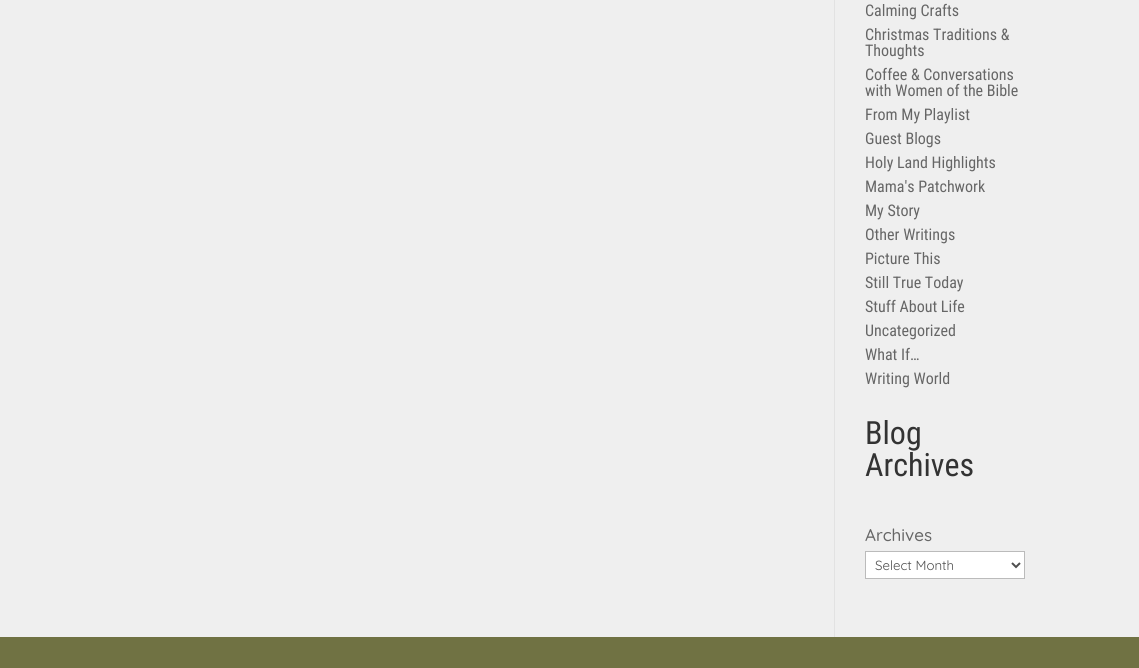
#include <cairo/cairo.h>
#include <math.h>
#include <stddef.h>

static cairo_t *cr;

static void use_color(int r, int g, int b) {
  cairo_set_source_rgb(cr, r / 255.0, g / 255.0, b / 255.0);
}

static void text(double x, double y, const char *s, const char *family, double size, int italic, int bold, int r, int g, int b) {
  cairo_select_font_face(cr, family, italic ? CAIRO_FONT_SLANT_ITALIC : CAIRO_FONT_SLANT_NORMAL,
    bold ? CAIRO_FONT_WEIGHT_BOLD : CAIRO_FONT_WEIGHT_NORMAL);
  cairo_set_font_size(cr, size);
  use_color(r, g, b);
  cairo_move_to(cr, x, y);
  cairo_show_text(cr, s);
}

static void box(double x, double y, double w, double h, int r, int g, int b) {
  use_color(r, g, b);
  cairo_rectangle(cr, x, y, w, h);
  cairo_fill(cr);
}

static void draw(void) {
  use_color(239, 239, 239);
  cairo_paint(cr);
  box(834, 0, 1, 637, 226, 226, 226);
  use_color(255, 255, 255);
  cairo_rectangle(cr, 865.5, 551.5, 159, 27);
  cairo_fill_preserve(cr);
  use_color(187, 187, 187);
  cairo_set_line_width(cr, 1);
  cairo_stroke(cr);
  cairo_new_path(cr);
  cairo_move_to(cr, 1012, 563);
  cairo_line_to(cr, 1016, 567);
  cairo_line_to(cr, 1020, 563);
  use_color(78, 78, 78);
  cairo_set_line_width(cr, 2);
  cairo_stroke(cr);
  box(0, 637, 1139, 31, 112, 114, 67);
  text(865, 16, "Calming Crafts", "Roboto Condensed", 16, 0, 0, 102, 102, 102);
  text(865, 40, "Christmas Traditions &", "Roboto Condensed", 16, 0, 0, 102, 102, 102);
  text(865, 56, "Thoughts", "Roboto Condensed", 16, 0, 0, 102, 102, 102);
  text(865, 80, "Coffee & Conversations", "Roboto Condensed", 16, 0, 0, 102, 102, 102);
  text(865, 96, "with Women of the Bible", "Roboto Condensed", 16, 0, 0, 102, 102, 102);
  text(865, 120, "From My Playlist", "Roboto Condensed", 16, 0, 0, 102, 102, 102);
  text(865, 144, "Guest Blogs", "Roboto Condensed", 16, 0, 0, 102, 102, 102);
  text(865, 168, "Holy Land Highlights", "Roboto Condensed", 16, 0, 0, 102, 102, 102);
  text(865, 192, "Mama's Patchwork", "Roboto Condensed", 16, 0, 0, 102, 102, 102);
  text(865, 216, "My Story", "Roboto Condensed", 16, 0, 0, 102, 102, 102);
  text(865, 240, "Other Writings", "Roboto Condensed", 16, 0, 0, 102, 102, 102);
  text(865, 264, "Picture This", "Roboto Condensed", 16, 0, 0, 102, 102, 102);
  text(865, 288, "Still True Today", "Roboto Condensed", 16, 0, 0, 102, 102, 102);
  text(865, 312, "Stuff About Life", "Roboto Condensed", 16, 0, 0, 102, 102, 102);
  text(865, 336, "Uncategorized", "Roboto Condensed", 16, 0, 0, 102, 102, 102);
  text(865, 360, "What If…", "Roboto Condensed", 16, 0, 0, 102, 102, 102);
  text(865, 384, "Writing World", "Roboto Condensed", 16, 0, 0, 102, 102, 102);
  text(865, 444, "Blog", "Roboto Condensed", 32, 0, 0, 51, 51, 51);
  text(865, 476, "Archives", "Roboto Condensed", 32, 0, 0, 51, 51, 51);
  text(865, 541, "Archives", "Quicksand Medium", 17, 0, 0, 102, 102, 102);
  text(875, 570, "Select Month", "Quicksand", 13.25, 0, 0, 78, 78, 78);
}

int main(void) {
  cairo_surface_t *surface = cairo_image_surface_create(CAIRO_FORMAT_RGB24, 1139, 668);
  cr = cairo_create(surface);
  cairo_font_options_t *options = cairo_font_options_create();
  cairo_font_options_set_hint_metrics(options, CAIRO_HINT_METRICS_OFF);
  cairo_font_options_set_hint_style(options, CAIRO_HINT_STYLE_NONE);
  cairo_set_font_options(cr, options);
  cairo_set_miter_limit(cr, 4);
  draw();
  cairo_surface_write_to_png(surface, "out.png");
  cairo_font_options_destroy(options);
  cairo_destroy(cr);
  cairo_surface_destroy(surface);
  return 0;
}
